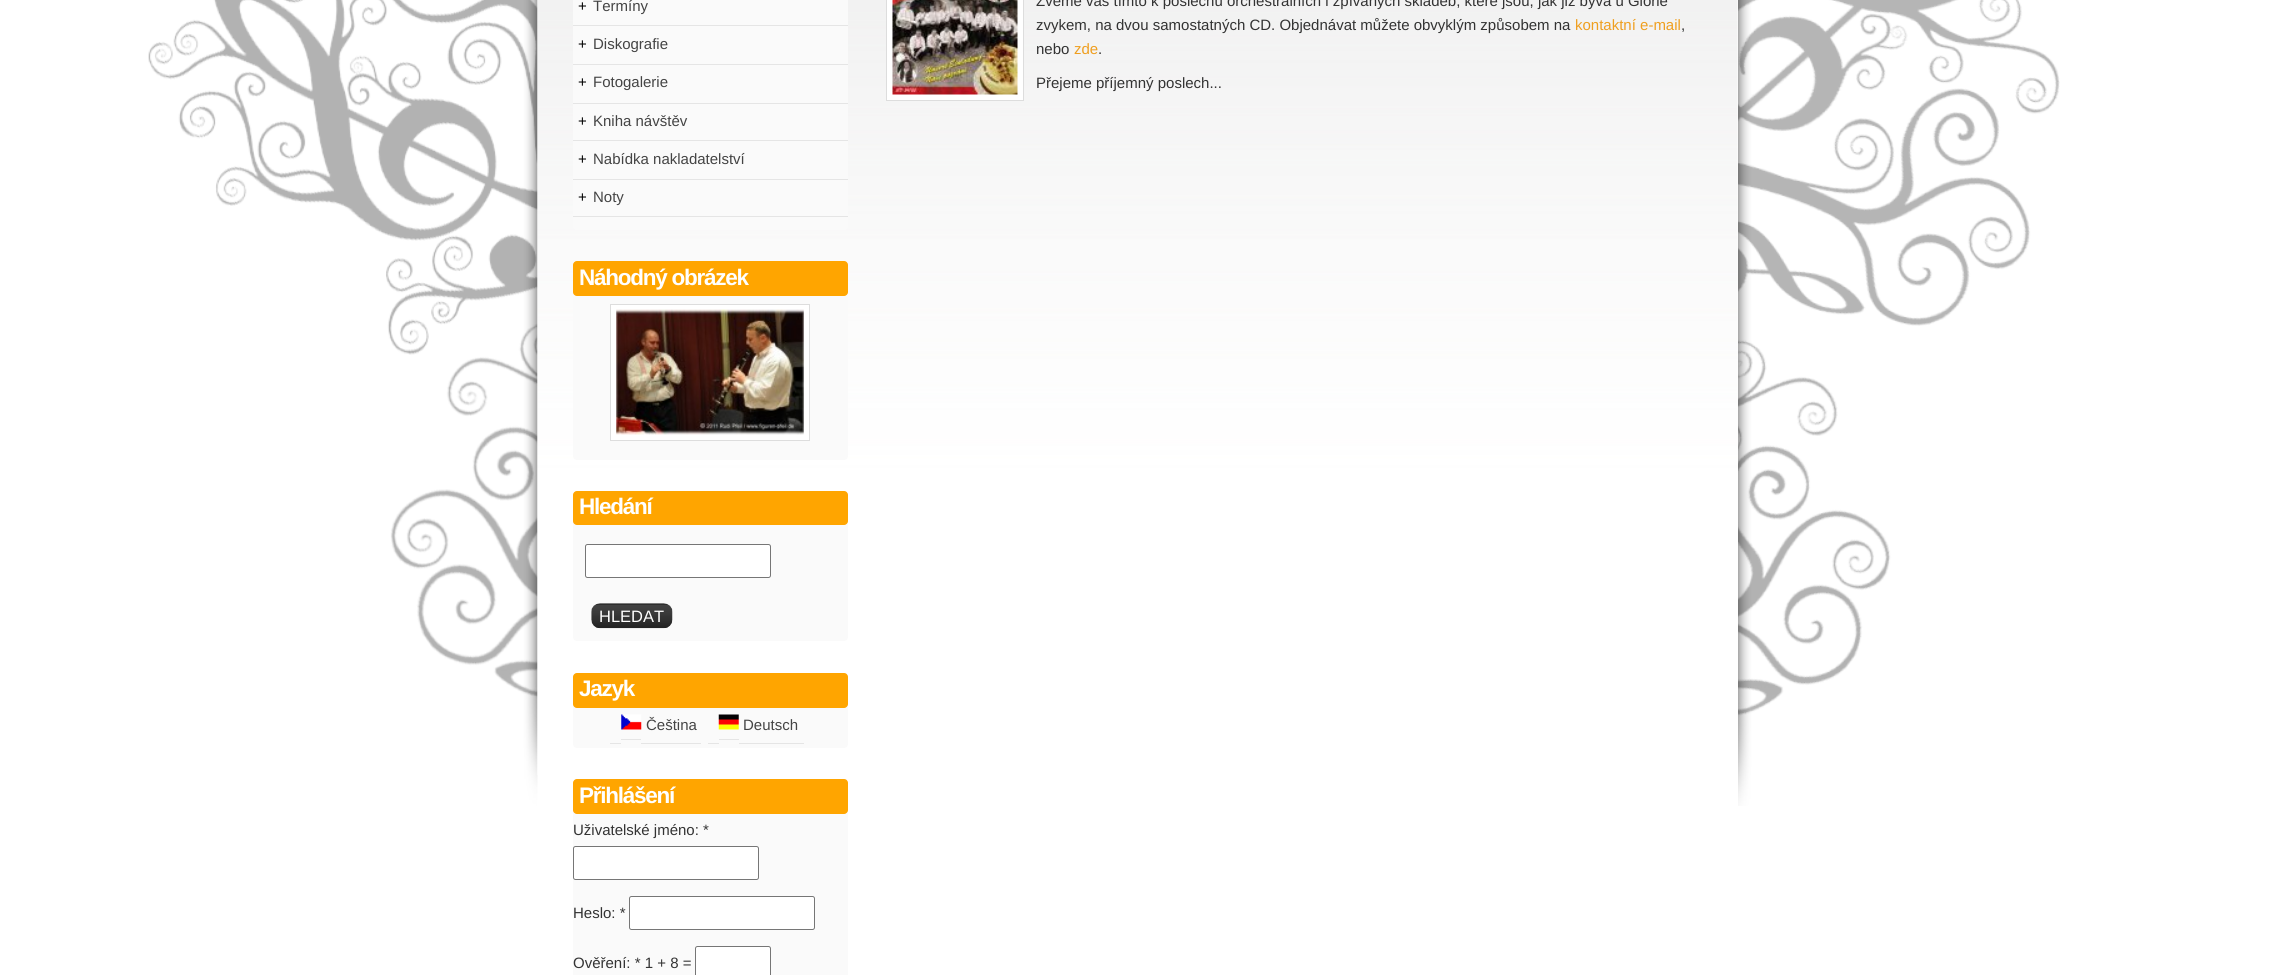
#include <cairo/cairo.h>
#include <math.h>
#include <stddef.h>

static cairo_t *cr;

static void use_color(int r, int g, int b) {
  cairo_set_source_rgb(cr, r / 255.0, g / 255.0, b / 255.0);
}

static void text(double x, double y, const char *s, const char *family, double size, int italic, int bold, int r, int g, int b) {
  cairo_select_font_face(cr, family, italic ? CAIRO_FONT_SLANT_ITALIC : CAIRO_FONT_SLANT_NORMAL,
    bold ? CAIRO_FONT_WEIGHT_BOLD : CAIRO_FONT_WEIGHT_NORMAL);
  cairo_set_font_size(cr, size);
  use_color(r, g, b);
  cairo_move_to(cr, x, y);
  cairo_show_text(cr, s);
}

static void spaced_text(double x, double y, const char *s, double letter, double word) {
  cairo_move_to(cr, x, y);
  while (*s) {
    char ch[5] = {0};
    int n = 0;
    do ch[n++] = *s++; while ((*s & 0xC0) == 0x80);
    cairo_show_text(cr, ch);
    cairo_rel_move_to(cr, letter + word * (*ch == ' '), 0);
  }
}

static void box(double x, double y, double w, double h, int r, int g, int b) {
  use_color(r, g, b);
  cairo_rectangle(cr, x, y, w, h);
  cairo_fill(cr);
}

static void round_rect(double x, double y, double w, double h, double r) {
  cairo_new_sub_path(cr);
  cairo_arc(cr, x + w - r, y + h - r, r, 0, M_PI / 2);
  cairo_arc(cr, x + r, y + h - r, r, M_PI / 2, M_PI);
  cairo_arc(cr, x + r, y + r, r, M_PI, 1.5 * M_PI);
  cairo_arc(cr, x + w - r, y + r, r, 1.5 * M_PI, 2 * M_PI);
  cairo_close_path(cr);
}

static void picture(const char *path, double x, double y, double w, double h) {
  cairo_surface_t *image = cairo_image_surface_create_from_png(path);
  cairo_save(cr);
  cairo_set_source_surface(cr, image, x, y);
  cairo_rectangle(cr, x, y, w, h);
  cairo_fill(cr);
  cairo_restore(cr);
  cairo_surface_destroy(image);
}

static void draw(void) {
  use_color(255, 255, 255);
  cairo_paint(cr);
  picture("img_01.png", 148, 0, 1912, 806);
  box(1737, 0, 1, 806, 255, 255, 255);
  picture("img_02.png", 537, 0, 1201, 775);
  use_color(250, 250, 250);
  round_rect(573, -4, 275, 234, 4);
  cairo_fill(cr);
  box(573, 25, 275, 1, 229, 229, 229);
  box(573, 64, 275, 1, 229, 229, 229);
  box(573, 103, 275, 1, 229, 229, 229);
  box(573, 140, 275, 1, 229, 229, 229);
  box(573, 179, 275, 1, 229, 229, 229);
  box(573, 216, 275, 1, 229, 229, 229);
  use_color(250, 250, 250);
  round_rect(573, 261, 275, 199, 4);
  cairo_fill(cr);
  use_color(255, 165, 0);
  round_rect(573, 261, 275, 35, 4);
  cairo_fill(cr);
  use_color(255, 255, 255);
  cairo_rectangle(cr, 610.5, 304.5, 199, 136);
  cairo_fill_preserve(cr);
  use_color(221, 221, 221);
  cairo_set_line_width(cr, 1);
  cairo_stroke(cr);
  picture("img_03.png", 616, 309, 188, 126);
  use_color(250, 250, 250);
  round_rect(573, 491, 275, 150, 4);
  cairo_fill(cr);
  use_color(255, 165, 0);
  round_rect(573, 491, 275, 34, 4);
  cairo_fill(cr);
  use_color(255, 255, 255);
  round_rect(585.5, 544.5, 185, 33, 2);
  cairo_fill_preserve(cr);
  use_color(118, 118, 118);
  cairo_stroke(cr);
  picture("img_04.png", 591, 603, 82, 26);
  use_color(250, 250, 250);
  round_rect(573, 673, 275, 75, 4);
  cairo_fill(cr);
  use_color(255, 165, 0);
  round_rect(573, 673, 275, 35, 4);
  cairo_fill(cr);
  box(621, 715, 20, 15, 255, 255, 255);
  picture("img_05.png", 621, 714, 21, 16);
  box(610, 743, 11, 1, 229, 229, 229);
  box(621, 739, 20, 1, 229, 229, 229);
  box(641, 743, 60, 1, 229, 229, 229);
  box(719, 715, 20, 15, 255, 255, 255);
  picture("img_06.png", 718, 714, 21, 16);
  box(708, 743, 11, 1, 229, 229, 229);
  box(719, 739, 20, 1, 229, 229, 229);
  box(739, 743, 65, 1, 229, 229, 229);
  use_color(250, 250, 250);
  round_rect(573, 779, 275, 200, 4);
  cairo_fill(cr);
  use_color(255, 165, 0);
  round_rect(573, 779, 275, 35, 4);
  cairo_fill(cr);
  use_color(255, 255, 255);
  round_rect(573.5, 846.5, 185, 33, 2);
  cairo_fill_preserve(cr);
  use_color(118, 118, 118);
  cairo_stroke(cr);
  use_color(255, 255, 255);
  round_rect(629.5, 896.5, 185, 33, 2);
  cairo_fill_preserve(cr);
  use_color(118, 118, 118);
  cairo_stroke(cr);
  use_color(255, 255, 255);
  round_rect(695.5, 946.5, 75, 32, 2);
  cairo_fill_preserve(cr);
  use_color(118, 118, 118);
  cairo_stroke(cr);
  use_color(255, 255, 255);
  cairo_rectangle(cr, 886.5, -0.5, 137, 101);
  cairo_fill_preserve(cr);
  use_color(221, 221, 221);
  cairo_stroke(cr);
  picture("img_07.png", 892, 0, 126, 95);
  text(578, 11, "+", "Liberation Sans", 15, 0, 0, 0, 0, 0);
  text(593, 11, "Termíny", "Liberation Sans", 15, 0, 0, 68, 68, 68);
  text(578, 49, "+", "Liberation Sans", 15, 0, 0, 0, 0, 0);
  text(593, 49, "Diskografie", "Liberation Sans", 15, 0, 0, 68, 68, 68);
  text(578, 87, "+", "Liberation Sans", 15, 0, 0, 0, 0, 0);
  text(593, 87, "Fotogalerie", "Liberation Sans", 15, 0, 0, 68, 68, 68);
  text(578, 126, "+", "Liberation Sans", 15, 0, 0, 0, 0, 0);
  text(593, 126, "Kniha návštěv", "Liberation Sans", 15, 0, 0, 68, 68, 68);
  text(578, 164, "+", "Liberation Sans", 15, 0, 0, 0, 0, 0);
  text(593, 164, "Nabídka nakladatelství", "Liberation Sans", 15, 0, 0, 68, 68, 68);
  text(578, 202, "+", "Liberation Sans", 15, 0, 0, 0, 0, 0);
  text(593, 202, "Noty", "Liberation Sans", 15, 0, 0, 68, 68, 68);
  cairo_select_font_face(cr, "Liberation Sans", CAIRO_FONT_SLANT_NORMAL, CAIRO_FONT_WEIGHT_BOLD);
  cairo_set_font_size(cr, 22.5);
  use_color(255, 255, 255);
  spaced_text(579, 285, "Náhodný obrázek", -1.25, 0);
  spaced_text(579, 514, "Hledání", -1.25, 0);
  text(599, 622, "HLEDAT", "Liberation Sans", 16.5, 0, 0, 255, 255, 255);
  cairo_select_font_face(cr, "Liberation Sans", CAIRO_FONT_SLANT_NORMAL, CAIRO_FONT_WEIGHT_BOLD);
  cairo_set_font_size(cr, 22.5);
  spaced_text(579, 696, "Jazyk", -1.25, 0);
  text(646, 730, "Čeština", "Liberation Sans", 15, 0, 0, 68, 68, 68);
  text(743, 730, "Deutsch", "Liberation Sans", 15, 0, 0, 68, 68, 68);
  cairo_select_font_face(cr, "Liberation Sans", CAIRO_FONT_SLANT_NORMAL, CAIRO_FONT_WEIGHT_BOLD);
  cairo_set_font_size(cr, 22.5);
  use_color(255, 255, 255);
  spaced_text(579, 803, "Přihlášení", -1.25, 0);
  text(573, 835, "Uživatelské jméno: *", "Liberation Sans", 15, 0, 0, 51, 51, 51);
  text(573, 918, "Heslo: *", "Liberation Sans", 15, 0, 0, 51, 51, 51);
  text(573, 968, "Ověření: * 1 + 8 =", "Liberation Sans", 15, 0, 0, 51, 51, 51);
  text(1036, 6, "Zveme vás tímto k poslechu orchestrálních i zpívaných skladeb, které jsou, jak již bývá u Glorie", "Liberation Sans", 15, 0, 0, 51, 51, 51);
  text(1036, 30, "zvykem, na dvou samostatných CD. Objednávat můžete obvyklým způsobem na", "Liberation Sans", 15, 0, 0, 51, 51, 51);
  text(1575, 30, "kontaktní e-mail", "Liberation Sans", 15, 0, 0, 239, 159, 32);
  text(1681, 30, ",", "Liberation Sans", 15, 0, 0, 51, 51, 51);
  text(1036, 54, "nebo", "Liberation Sans", 15, 0, 0, 51, 51, 51);
  text(1074, 54, "zde", "Liberation Sans", 15, 0, 0, 239, 159, 32);
  text(1098, 54, ".", "Liberation Sans", 15, 0, 0, 51, 51, 51);
  text(1036, 88, "Přejeme příjemný poslech...", "Liberation Sans", 15, 0, 0, 51, 51, 51);
}

int main(void) {
  cairo_surface_t *surface = cairo_image_surface_create(CAIRO_FORMAT_RGB24, 2274, 975);
  cr = cairo_create(surface);
  cairo_font_options_t *options = cairo_font_options_create();
  cairo_font_options_set_hint_metrics(options, CAIRO_HINT_METRICS_OFF);
  cairo_font_options_set_hint_style(options, CAIRO_HINT_STYLE_NONE);
  cairo_set_font_options(cr, options);
  cairo_set_miter_limit(cr, 4);
  draw();
  cairo_surface_write_to_png(surface, "out.png");
  cairo_font_options_destroy(options);
  cairo_destroy(cr);
  cairo_surface_destroy(surface);
  return 0;
}
